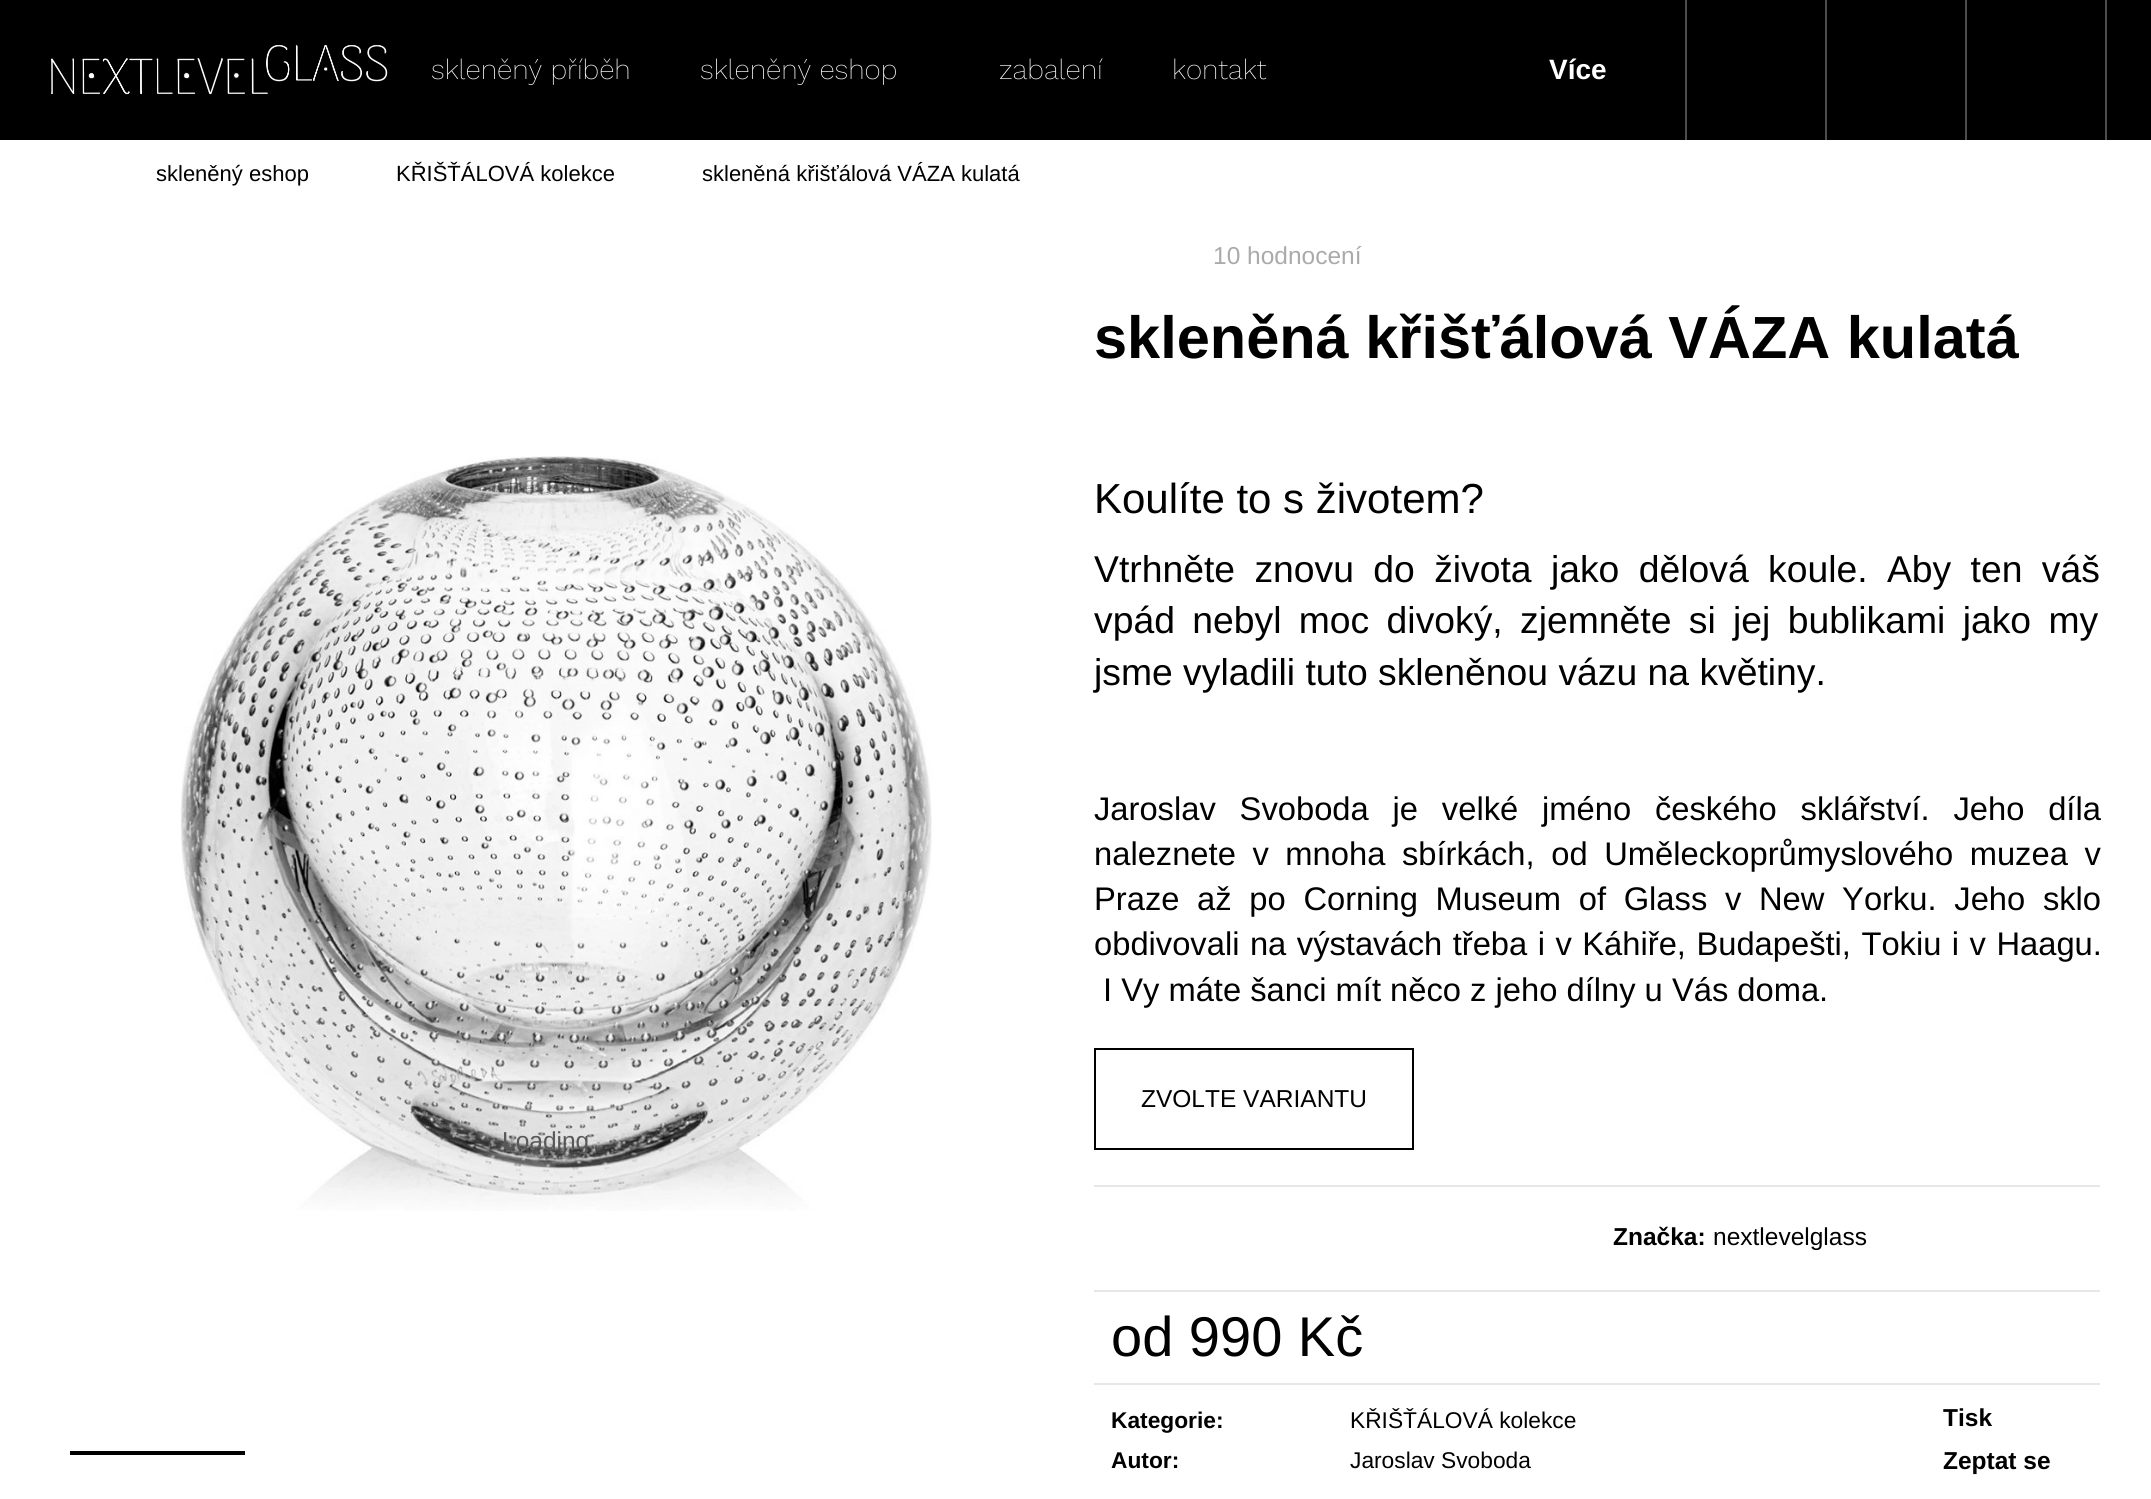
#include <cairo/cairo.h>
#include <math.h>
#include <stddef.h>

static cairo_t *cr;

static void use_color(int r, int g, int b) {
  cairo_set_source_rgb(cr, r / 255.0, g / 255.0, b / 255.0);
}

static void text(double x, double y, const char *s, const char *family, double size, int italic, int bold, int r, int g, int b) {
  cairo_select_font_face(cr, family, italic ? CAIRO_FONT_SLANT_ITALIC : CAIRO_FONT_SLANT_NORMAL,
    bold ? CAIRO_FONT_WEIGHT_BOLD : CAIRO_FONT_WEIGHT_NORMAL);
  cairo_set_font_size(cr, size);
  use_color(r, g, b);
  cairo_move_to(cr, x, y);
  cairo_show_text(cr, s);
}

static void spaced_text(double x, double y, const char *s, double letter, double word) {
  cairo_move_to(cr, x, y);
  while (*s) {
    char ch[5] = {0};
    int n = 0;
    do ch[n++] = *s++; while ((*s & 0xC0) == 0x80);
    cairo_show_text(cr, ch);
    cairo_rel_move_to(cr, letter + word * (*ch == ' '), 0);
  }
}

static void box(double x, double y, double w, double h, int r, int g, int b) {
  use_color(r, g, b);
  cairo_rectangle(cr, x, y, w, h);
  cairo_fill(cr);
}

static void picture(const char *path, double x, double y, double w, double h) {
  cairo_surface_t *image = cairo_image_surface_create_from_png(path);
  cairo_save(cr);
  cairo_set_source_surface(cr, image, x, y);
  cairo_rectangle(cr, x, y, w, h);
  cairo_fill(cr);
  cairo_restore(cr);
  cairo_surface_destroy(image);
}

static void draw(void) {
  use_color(255, 255, 255);
  cairo_paint(cr);
  box(0, 0, 2151, 140, 0, 0, 0);
  picture("img_01.png", 51, 45, 337, 50);
  box(2105, 0, 2, 140, 77, 77, 77);
  box(1685, 0, 2, 140, 77, 77, 77);
  box(1825, 0, 2, 140, 77, 77, 77);
  box(1965, 0, 2, 140, 77, 77, 77);
  picture("img_02.png", 180, 456, 752, 755);
  box(70, 1451, 175, 4, 0, 0, 0);
  cairo_rectangle(cr, 1095, 1049, 318, 100);
  cairo_stroke(cr);
  box(1094, 1185, 1006, 2, 231, 231, 231);
  box(1094, 1290, 1006, 2, 231, 231, 231);
  box(1094, 1383, 1006, 2, 231, 231, 231);
  text(431, 79, "skleněný příběh", "Work Sans ExtraLight", 28, 0, 0, 255, 255, 255);
  text(700, 79, "skleněný eshop", "Work Sans ExtraLight", 28, 0, 0, 255, 255, 255);
  text(999, 79, "zabalení", "Work Sans ExtraLight", 28, 0, 0, 255, 255, 255);
  text(1172, 79, "kontakt", "Work Sans ExtraLight", 28, 0, 0, 255, 255, 255);
  text(1549, 79, "Více", "Liberation Sans", 28, 0, 1, 255, 255, 255);
  text(156, 181, "skleněný eshop", "Liberation Sans", 22, 0, 0, 0, 0, 0);
  text(396, 181, "KŘIŠŤÁLOVÁ kolekce", "Liberation Sans", 22, 0, 0, 0, 0, 0);
  text(702, 181, "skleněná křišťálová VÁZA kulatá", "Liberation Sans", 22, 0, 0, 0, 0, 0);
  text(502, 1149, "Loading...", "Liberation Sans", 24.5, 0, 0, 88, 88, 88);
  text(1213, 264, "10 hodnocení", "Liberation Sans", 24.5, 0, 0, 170, 170, 170);
  text(1094, 358, "skleněná křišťálová VÁZA kulatá", "Liberation Sans", 59.5, 0, 1, 0, 0, 0);
  text(1094, 513, "Koulíte to s životem?", "Liberation Sans", 42, 0, 0, 0, 0, 0);
  cairo_set_font_size(cr, 37.3);
  spaced_text(1094, 582, "Vtrhněte znovu do života jako dělová koule. Aby ten váš", 0, 9);
  spaced_text(1094, 633, "vpád nebyl moc divoký, zjemněte si jej bublikami jako my", 0, 7);
  text(1094, 685, "jsme vyladili tuto skleněnou vázu na květiny.", "Liberation Sans", 37.3, 0, 0, 0, 0, 0);
  cairo_set_font_size(cr, 32.7);
  spaced_text(1094, 820, "Jaroslav Svoboda je velké jméno českého sklářství. Jeho díla", 0, 14.75);
  spaced_text(1094, 865, "naleznete v mnoha sbírkách, od Uměleckoprůmyslového muzea v", 0, 7.5);
  spaced_text(1094, 910, "Praze až po Corning Museum of Glass v New Yorku. Jeho sklo", 0, 8.6);
  spaced_text(1094, 955, "obdivovali na výstavách třeba i v Káhiře, Budapešti, Tokiu i v Haagu.", 0, 1.4);
  text(1103, 1001, "I Vy máte šanci mít něco z jeho dílny u Vás doma.", "Liberation Sans", 32.7, 0, 0, 0, 0, 0);
  text(1141, 1107, "ZVOLTE VARIANTU", "Liberation Sans", 24.5, 0, 0, 0, 0, 0);
  text(1613, 1245, "Značka:", "Liberation Sans", 24.5, 0, 1, 0, 0, 0);
  text(1713, 1245, "nextlevelglass", "Liberation Sans", 24.5, 0, 0, 0, 0, 0);
  text(1111, 1356, "od 990 Kč", "Liberation Sans", 56, 0, 0, 0, 0, 0);
  text(1111, 1428, "Kategorie:", "Liberation Sans", 22.75, 0, 1, 0, 0, 0);
  text(1350, 1428, "KŘIŠŤÁLOVÁ kolekce", "Liberation Sans", 22.75, 0, 0, 0, 0, 0);
  text(1111, 1468, "Autor:", "Liberation Sans", 22.75, 0, 1, 0, 0, 0);
  text(1350, 1468, "Jaroslav Svoboda", "Liberation Sans", 22.75, 0, 0, 0, 0, 0);
  text(1943, 1426, "Tisk", "Liberation Sans", 24.5, 0, 1, 0, 0, 0);
  text(1943, 1469, "Zeptat se", "Liberation Sans", 24.5, 0, 1, 0, 0, 0);
}

int main(void) {
  cairo_surface_t *surface = cairo_image_surface_create(CAIRO_FORMAT_RGB24, 2151, 1499);
  cr = cairo_create(surface);
  cairo_font_options_t *options = cairo_font_options_create();
  cairo_font_options_set_hint_metrics(options, CAIRO_HINT_METRICS_OFF);
  cairo_font_options_set_hint_style(options, CAIRO_HINT_STYLE_NONE);
  cairo_set_font_options(cr, options);
  cairo_set_miter_limit(cr, 4);
  draw();
  cairo_surface_write_to_png(surface, "out.png");
  cairo_font_options_destroy(options);
  cairo_destroy(cr);
  cairo_surface_destroy(surface);
  return 0;
}
